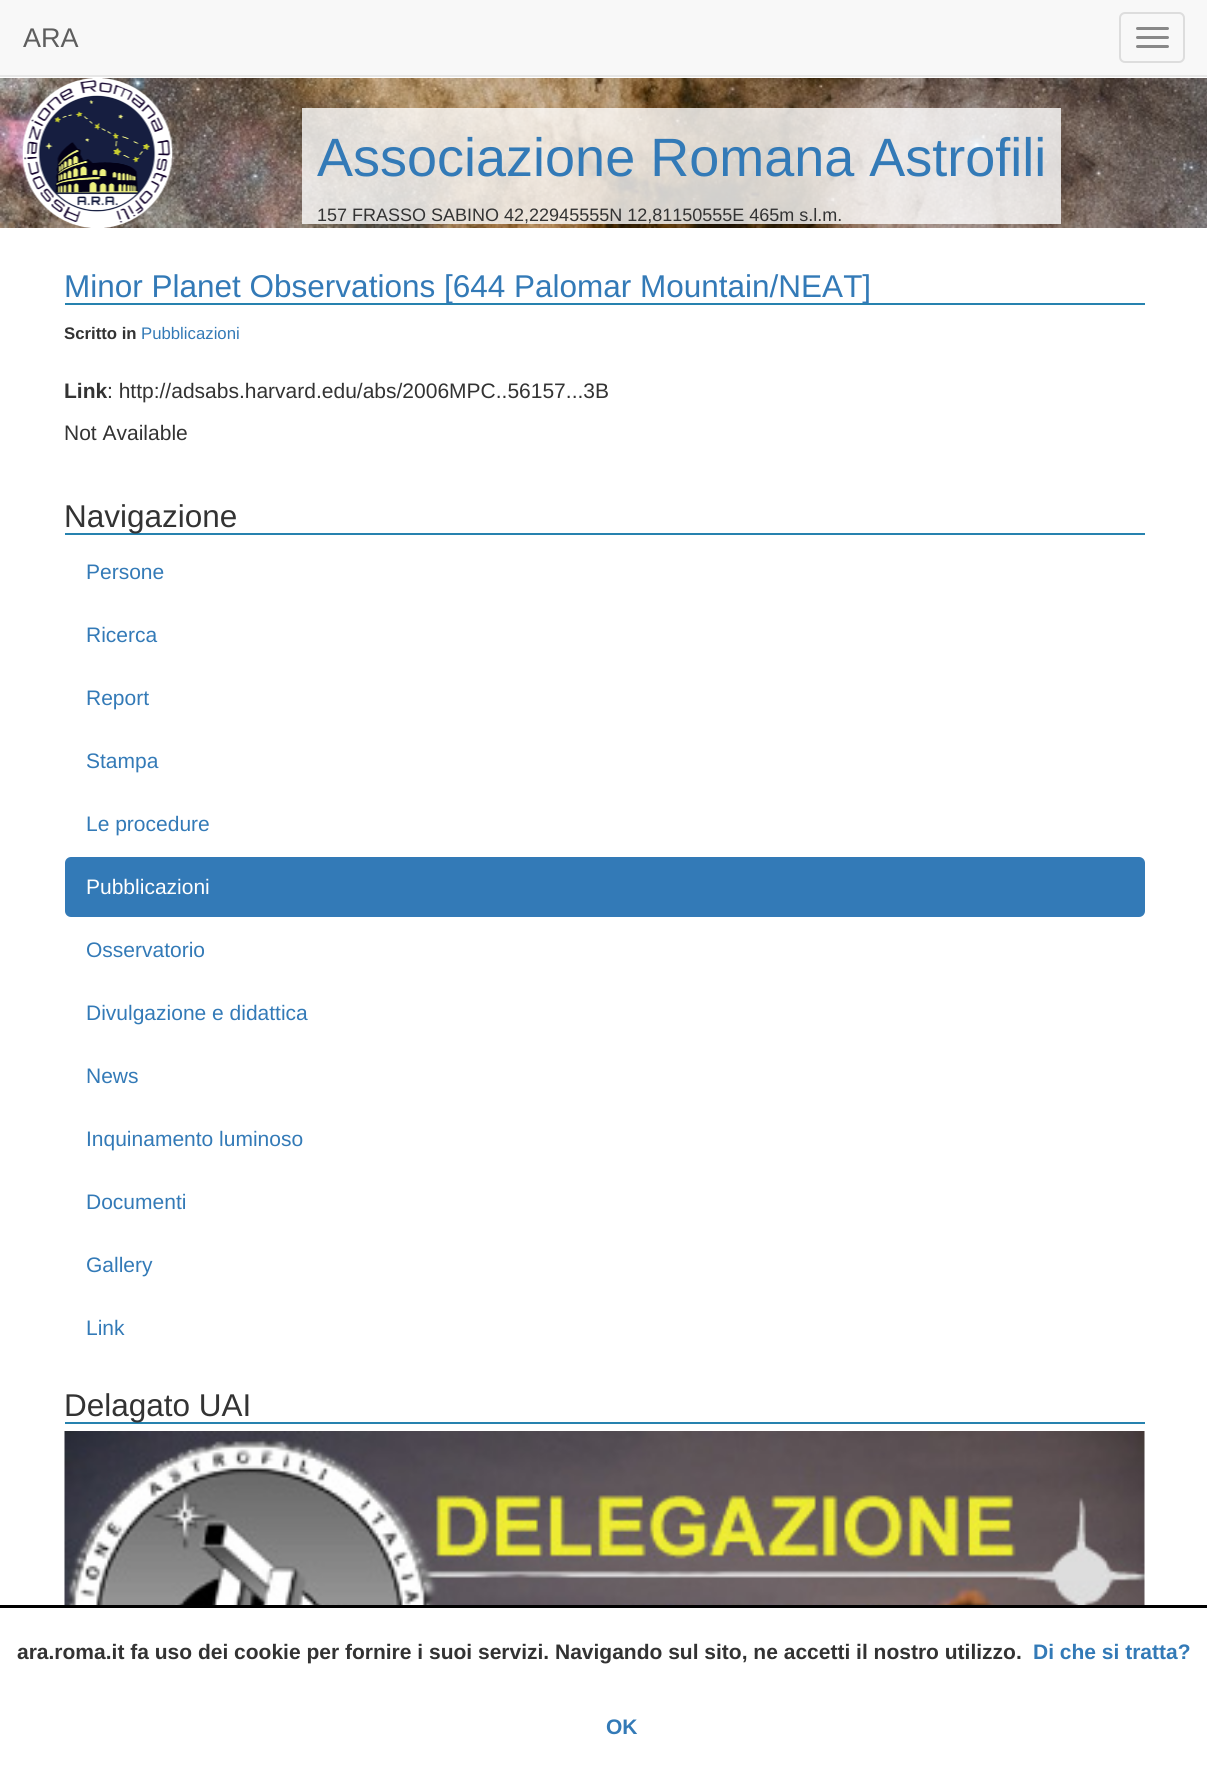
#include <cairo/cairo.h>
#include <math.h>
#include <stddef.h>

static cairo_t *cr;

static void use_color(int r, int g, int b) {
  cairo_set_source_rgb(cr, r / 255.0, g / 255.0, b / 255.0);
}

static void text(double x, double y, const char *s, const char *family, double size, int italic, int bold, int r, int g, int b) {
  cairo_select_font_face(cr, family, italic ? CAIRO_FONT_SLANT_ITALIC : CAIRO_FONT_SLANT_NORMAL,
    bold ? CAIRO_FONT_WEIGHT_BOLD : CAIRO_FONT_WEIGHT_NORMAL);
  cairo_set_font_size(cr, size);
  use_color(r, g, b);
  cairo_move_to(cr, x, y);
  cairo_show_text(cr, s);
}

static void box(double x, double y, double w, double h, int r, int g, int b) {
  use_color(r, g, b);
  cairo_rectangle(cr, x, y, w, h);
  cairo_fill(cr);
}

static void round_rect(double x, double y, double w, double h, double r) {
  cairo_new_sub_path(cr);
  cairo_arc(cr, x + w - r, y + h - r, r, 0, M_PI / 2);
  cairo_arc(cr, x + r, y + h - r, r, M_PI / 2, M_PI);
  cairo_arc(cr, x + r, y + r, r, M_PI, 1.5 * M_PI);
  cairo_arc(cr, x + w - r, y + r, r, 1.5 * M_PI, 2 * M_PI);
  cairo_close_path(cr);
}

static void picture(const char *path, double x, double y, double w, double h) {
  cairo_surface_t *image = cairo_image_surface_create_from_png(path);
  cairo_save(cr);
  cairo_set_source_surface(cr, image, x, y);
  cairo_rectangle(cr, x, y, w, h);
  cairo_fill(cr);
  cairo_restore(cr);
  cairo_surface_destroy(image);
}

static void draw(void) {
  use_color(255, 255, 255);
  cairo_paint(cr);
  box(0, 0, 1207, 75, 248, 248, 248);
  box(0, 75, 1207, 2, 231, 231, 231);
  round_rect(1120, 13, 64, 49, 5);
  use_color(221, 221, 221);
  cairo_stroke(cr);
  use_color(136, 136, 136);
  round_rect(1136, 27, 33, 3, 1.5);
  cairo_fill(cr);
  round_rect(1136, 36, 33, 3, 1.5);
  cairo_fill(cr);
  round_rect(1136, 45, 33, 3, 1.5);
  cairo_fill(cr);
  picture("img_01.png", 0, 78, 1207, 150);
  picture("img_02.png", 22, 78, 151, 150);
  cairo_set_source_rgba(cr, 1, 1, 1, 0.8);
  cairo_rectangle(cr, 302, 108, 759, 116);
  cairo_fill(cr);
  box(65, 303, 1080, 2, 38, 130, 175);
  box(65, 533, 1080, 2, 38, 130, 175);
  use_color(51, 122, 183);
  round_rect(65, 857, 1080, 60, 6);
  cairo_fill(cr);
  box(65, 1422, 1080, 2, 38, 130, 175);
  picture("img_03.png", 64, 1431, 1081, 174);
  box(0, 1605, 1207, 3, 0, 0, 0);
  text(23, 47, "ARA", "Liberation Sans", 27, 0, 0, 94, 94, 94);
  text(317, 176, "Associazione Romana Astrofili", "Liberation Sans", 54, 0, 0, 51, 122, 183);
  text(317, 221, "157 FRASSO SABINO 42,22945555N 12,81150555E 465m s.l.m.", "Liberation Sans", 18, 0, 0, 51, 51, 51);
  text(64, 297, "Minor Planet Observations [644 Palomar Mountain/NEAT]", "Liberation Sans", 31.5, 0, 0, 51, 122, 183);
  text(64, 339, "Scritto in", "Liberation Sans", 16.75, 0, 1, 51, 51, 51);
  text(141, 339, "Pubblicazioni", "Liberation Sans", 16.75, 0, 0, 51, 122, 183);
  text(64, 398, "Link", "Liberation Sans", 21, 0, 1, 51, 51, 51);
  text(107, 398, ": http://adsabs.harvard.edu/abs/2006MPC..56157...3B", "Liberation Sans", 21, 0, 0, 51, 51, 51);
  text(64, 440, "Not Available", "Liberation Sans", 21, 0, 0, 51, 51, 51);
  text(64, 527, "Navigazione", "Liberation Sans", 31.5, 0, 0, 51, 51, 51);
  text(86, 579, "Persone", "Liberation Sans", 21, 0, 0, 51, 122, 183);
  text(86, 642, "Ricerca", "Liberation Sans", 21, 0, 0, 51, 122, 183);
  text(86, 705, "Report", "Liberation Sans", 21, 0, 0, 51, 122, 183);
  text(86, 768, "Stampa", "Liberation Sans", 21, 0, 0, 51, 122, 183);
  text(86, 831, "Le procedure", "Liberation Sans", 21, 0, 0, 51, 122, 183);
  text(86, 894, "Pubblicazioni", "Liberation Sans", 21, 0, 0, 255, 255, 255);
  text(86, 957, "Osservatorio", "Liberation Sans", 21, 0, 0, 51, 122, 183);
  text(86, 1020, "Divulgazione e didattica", "Liberation Sans", 21, 0, 0, 51, 122, 183);
  text(86, 1083, "News", "Liberation Sans", 21, 0, 0, 51, 122, 183);
  text(86, 1146, "Inquinamento luminoso", "Liberation Sans", 21, 0, 0, 51, 122, 183);
  text(86, 1209, "Documenti", "Liberation Sans", 21, 0, 0, 51, 122, 183);
  text(86, 1272, "Gallery", "Liberation Sans", 21, 0, 0, 51, 122, 183);
  text(86, 1335, "Link", "Liberation Sans", 21, 0, 0, 51, 122, 183);
  text(64, 1416, "Delagato UAI", "Liberation Sans", 31.5, 0, 0, 51, 51, 51);
  text(17, 1659, "ara.roma.it fa uso dei cookie per fornire i suoi servizi. Navigando sul sito, ne accetti il nostro utilizzo.", "Liberation Sans", 21, 0, 1, 51, 51, 51);
  text(1033, 1659, "Di che si tratta?", "Liberation Sans", 21, 0, 1, 51, 122, 183);
  text(606, 1734, "OK", "Liberation Sans", 21, 0, 1, 51, 122, 183);
}

int main(void) {
  cairo_surface_t *surface = cairo_image_surface_create(CAIRO_FORMAT_RGB24, 1207, 1770);
  cr = cairo_create(surface);
  cairo_font_options_t *options = cairo_font_options_create();
  cairo_font_options_set_hint_metrics(options, CAIRO_HINT_METRICS_OFF);
  cairo_font_options_set_hint_style(options, CAIRO_HINT_STYLE_NONE);
  cairo_set_font_options(cr, options);
  cairo_set_miter_limit(cr, 4);
  draw();
  cairo_surface_write_to_png(surface, "out.png");
  cairo_font_options_destroy(options);
  cairo_destroy(cr);
  cairo_surface_destroy(surface);
  return 0;
}
